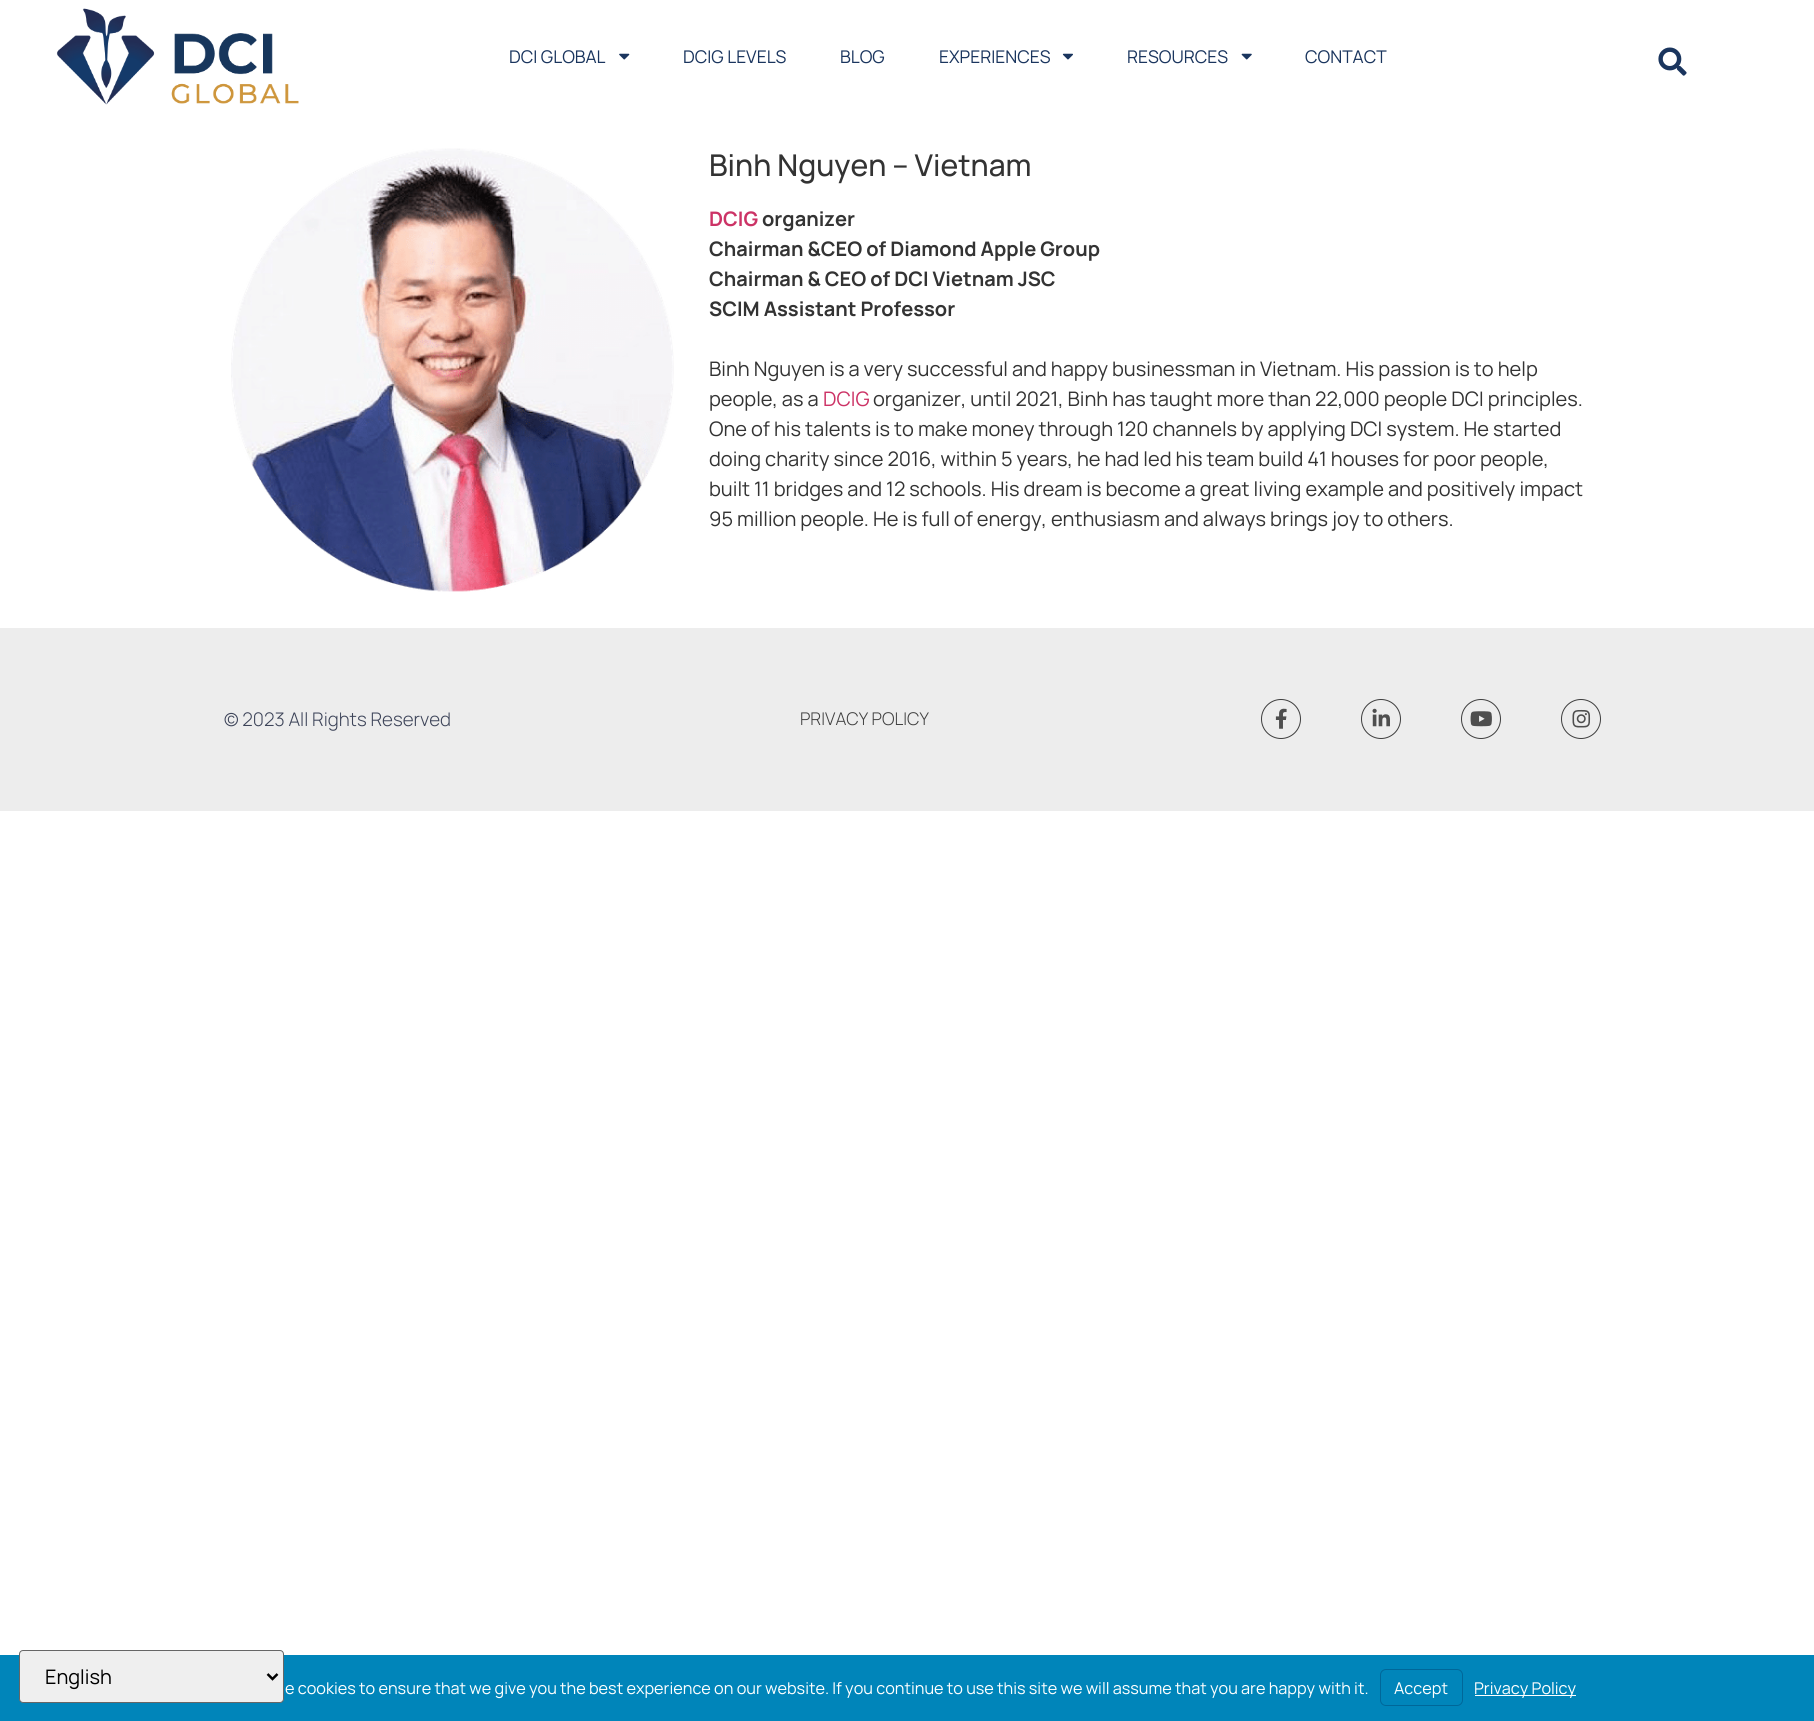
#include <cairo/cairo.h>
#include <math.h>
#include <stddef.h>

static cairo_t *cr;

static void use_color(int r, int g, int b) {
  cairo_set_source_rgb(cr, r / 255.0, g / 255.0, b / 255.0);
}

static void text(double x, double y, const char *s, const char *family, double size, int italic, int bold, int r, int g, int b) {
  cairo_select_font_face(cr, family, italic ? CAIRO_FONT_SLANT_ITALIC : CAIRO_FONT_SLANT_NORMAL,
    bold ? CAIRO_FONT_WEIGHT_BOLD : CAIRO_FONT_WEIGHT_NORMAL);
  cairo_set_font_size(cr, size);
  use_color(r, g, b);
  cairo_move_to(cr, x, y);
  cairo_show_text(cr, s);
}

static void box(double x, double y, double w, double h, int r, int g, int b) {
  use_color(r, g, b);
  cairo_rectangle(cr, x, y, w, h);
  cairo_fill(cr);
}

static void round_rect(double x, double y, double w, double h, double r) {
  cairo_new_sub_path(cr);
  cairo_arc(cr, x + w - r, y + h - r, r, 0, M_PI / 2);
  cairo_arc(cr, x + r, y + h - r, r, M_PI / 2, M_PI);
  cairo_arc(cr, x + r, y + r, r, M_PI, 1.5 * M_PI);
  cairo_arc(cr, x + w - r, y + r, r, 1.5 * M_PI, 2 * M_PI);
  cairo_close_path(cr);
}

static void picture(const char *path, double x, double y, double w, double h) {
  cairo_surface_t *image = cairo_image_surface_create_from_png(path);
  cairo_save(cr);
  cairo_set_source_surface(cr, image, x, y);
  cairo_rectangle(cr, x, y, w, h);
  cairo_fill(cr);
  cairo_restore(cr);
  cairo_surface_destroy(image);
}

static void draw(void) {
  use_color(255, 255, 255);
  cairo_paint(cr);
  picture("img_01.png", 56, 8, 243, 97);
  picture("img_02.png", 619, 53, 11, 7);
  picture("img_03.png", 1062, 53, 11, 7);
  picture("img_04.png", 1241, 53, 11, 7);
  picture("img_05.png", 1658, 47, 29, 29);
  picture("img_06.png", 231, 148, 443, 444);
  box(0, 628, 1814, 183, 237, 237, 237);
  cairo_arc(cr, 1281, 719, 19.5, 0, 2 * M_PI);
  use_color(62, 62, 62);
  cairo_set_line_width(cr, 1);
  cairo_stroke(cr);
  picture("img_07.png", 1275, 708, 12, 21);
  cairo_arc(cr, 1381, 719, 19.5, 0, 2 * M_PI);
  cairo_stroke(cr);
  picture("img_08.png", 1372, 708, 18, 19);
  cairo_arc(cr, 1481, 719, 19.5, 0, 2 * M_PI);
  cairo_stroke(cr);
  picture("img_09.png", 1470, 711, 22, 16);
  cairo_arc(cr, 1581, 719, 19.5, 0, 2 * M_PI);
  cairo_stroke(cr);
  picture("img_10.png", 1572, 709, 19, 19);
  box(0, 1655, 1814, 66, 0, 133, 186);
  use_color(239, 239, 239);
  round_rect(19.5, 1650.5, 264, 52, 3.5);
  cairo_fill_preserve(cr);
  use_color(102, 102, 102);
  cairo_stroke(cr);
  cairo_new_path(cr);
  cairo_move_to(cr, 267.5, 1674);
  cairo_line_to(cr, 272.5, 1679);
  cairo_line_to(cr, 277.5, 1674);
  use_color(0, 0, 0);
  cairo_set_line_width(cr, 2.5);
  cairo_stroke(cr);
  round_rect(1380.5, 1669.5, 82, 36, 5.5);
  use_color(0, 103, 153);
  cairo_set_line_width(cr, 1);
  cairo_stroke(cr);
  box(1475, 1695, 101, 1, 255, 255, 255);
  text(509, 63, "DCI GLOBAL", "Manrope", 17.5, 0, 0, 26, 53, 94);
  text(683, 63, "DCIG LEVELS", "Manrope", 17.5, 0, 0, 26, 53, 94);
  text(840, 63, "BLOG", "Manrope", 17.5, 0, 0, 26, 53, 94);
  text(939, 63, "EXPERIENCES", "Manrope", 17.5, 0, 0, 26, 53, 94);
  text(1127, 63, "RESOURCES", "Manrope", 17.5, 0, 0, 26, 53, 94);
  text(1305, 63, "CONTACT", "Manrope", 17.5, 0, 0, 26, 53, 94);
  text(709, 176, "Binh Nguyen – Vietnam", "Manrope Medium", 30, 0, 0, 51, 51, 51);
  text(709, 226, "DCIG", "Manrope", 20, 0, 1, 204, 51, 102);
  text(762, 226, "organizer", "Manrope", 20, 0, 1, 51, 51, 51);
  text(709, 256, "Chairman &CEO of Diamond Apple Group", "Manrope", 20, 0, 1, 51, 51, 51);
  text(709, 286, "Chairman & CEO of DCI Vietnam JSC", "Manrope", 20, 0, 1, 51, 51, 51);
  text(709, 316, "SCIM Assistant Professor", "Manrope", 20, 0, 1, 51, 51, 51);
  text(709, 376, "Binh Nguyen is a very successful and happy businessman in Vietnam. His passion is to help", "Manrope", 20, 0, 0, 51, 51, 51);
  text(709, 406, "people, as a", "Manrope", 20, 0, 0, 51, 51, 51);
  text(823, 406, "DCIG", "Manrope", 20, 0, 0, 204, 51, 102);
  text(873, 406, "organizer, until 2021, Binh has taught more than 22,000 people DCI principles.", "Manrope", 20, 0, 0, 51, 51, 51);
  text(709, 436, "One of his talents is to make money through 120 channels by applying DCI system. He started", "Manrope", 20, 0, 0, 51, 51, 51);
  text(709, 466, "doing charity since 2016, within 5 years, he had led his team build 41 houses for poor people,", "Manrope", 20, 0, 0, 51, 51, 51);
  text(709, 496, "built 11 bridges and 12 schools. His dream is become a great living example and positively impact", "Manrope", 20, 0, 0, 51, 51, 51);
  text(709, 526, "95 million people. He is full of energy, enthusiasm and always brings joy to others.", "Manrope", 20, 0, 0, 51, 51, 51);
  text(224, 726, "© 2023 All Rights Reserved", "Manrope Light", 18.75, 0, 0, 61, 68, 89);
  text(800, 725, "PRIVACY POLICY", "Manrope Light", 17.5, 0, 0, 65, 65, 65);
  text(45, 1684, "English", "Manrope", 20, 0, 0, 0, 0, 0);
  text(285, 1694, "e cookies to ensure that we give you the best experience on our website. If you continue to use this site we will assume that you are happy with it.", "Manrope", 16.25, 0, 0, 255, 255, 255);
  text(1394, 1694, "Accept", "Manrope", 16.25, 0, 0, 255, 255, 255);
  text(1474, 1694, "Privacy Policy", "Manrope", 16.25, 0, 0, 255, 255, 255);
}

int main(void) {
  cairo_surface_t *surface = cairo_image_surface_create(CAIRO_FORMAT_RGB24, 1814, 1721);
  cr = cairo_create(surface);
  cairo_font_options_t *options = cairo_font_options_create();
  cairo_font_options_set_hint_metrics(options, CAIRO_HINT_METRICS_OFF);
  cairo_font_options_set_hint_style(options, CAIRO_HINT_STYLE_NONE);
  cairo_set_font_options(cr, options);
  cairo_set_miter_limit(cr, 4);
  draw();
  cairo_surface_write_to_png(surface, "out.png");
  cairo_font_options_destroy(options);
  cairo_destroy(cr);
  cairo_surface_destroy(surface);
  return 0;
}
